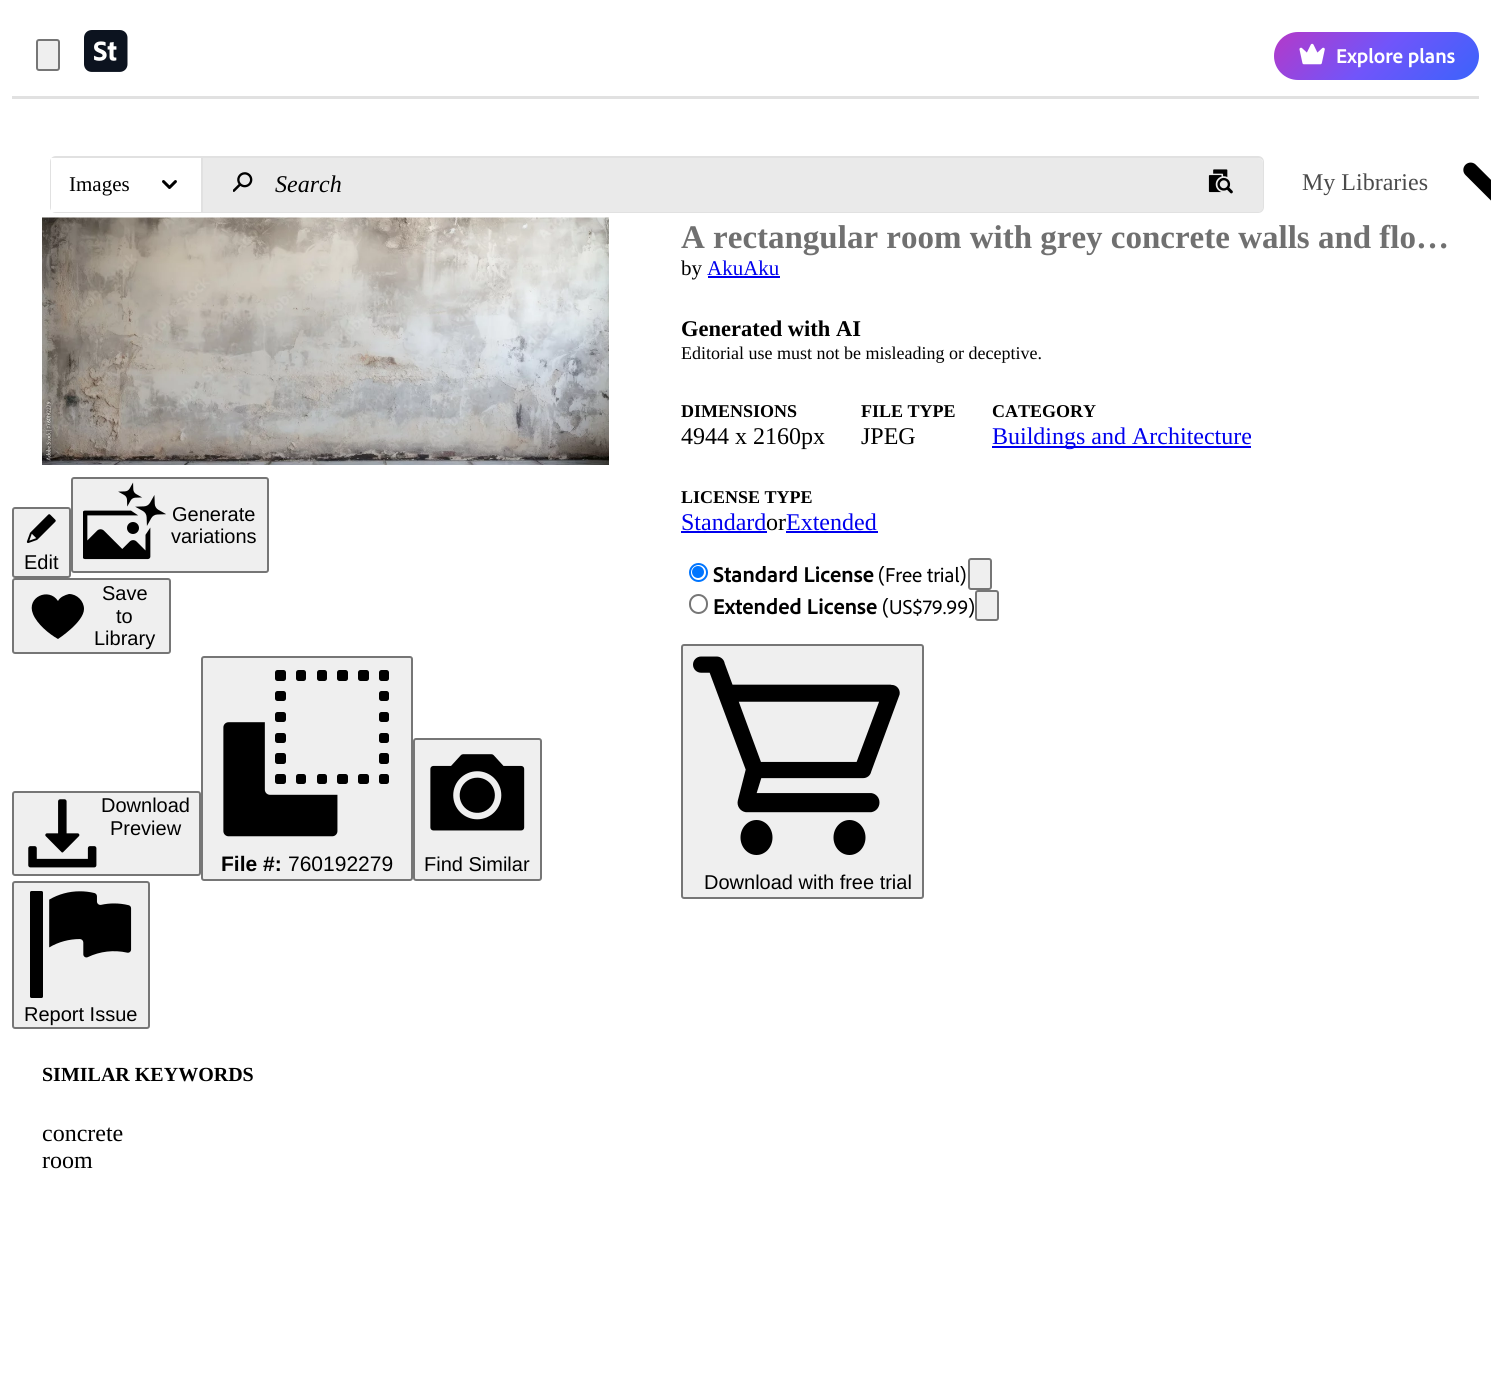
#include <cairo/cairo.h>
#include <math.h>
#include <stddef.h>

static cairo_t *cr;

static void use_color(int r, int g, int b) {
  cairo_set_source_rgb(cr, r / 255.0, g / 255.0, b / 255.0);
}

static void text(double x, double y, const char *s, const char *family, double size, int italic, int bold, int r, int g, int b) {
  cairo_select_font_face(cr, family, italic ? CAIRO_FONT_SLANT_ITALIC : CAIRO_FONT_SLANT_NORMAL,
    bold ? CAIRO_FONT_WEIGHT_BOLD : CAIRO_FONT_WEIGHT_NORMAL);
  cairo_set_font_size(cr, size);
  use_color(r, g, b);
  cairo_move_to(cr, x, y);
  cairo_show_text(cr, s);
}

static void box(double x, double y, double w, double h, int r, int g, int b) {
  use_color(r, g, b);
  cairo_rectangle(cr, x, y, w, h);
  cairo_fill(cr);
}

static void round_rect(double x, double y, double w, double h, double r) {
  cairo_new_sub_path(cr);
  cairo_arc(cr, x + w - r, y + h - r, r, 0, M_PI / 2);
  cairo_arc(cr, x + r, y + h - r, r, M_PI / 2, M_PI);
  cairo_arc(cr, x + r, y + r, r, M_PI, 1.5 * M_PI);
  cairo_arc(cr, x + w - r, y + r, r, 1.5 * M_PI, 2 * M_PI);
  cairo_close_path(cr);
}

static void picture(const char *path, double x, double y, double w, double h) {
  cairo_surface_t *image = cairo_image_surface_create_from_png(path);
  cairo_save(cr);
  cairo_set_source_surface(cr, image, x, y);
  cairo_rectangle(cr, x, y, w, h);
  cairo_fill(cr);
  cairo_restore(cr);
  cairo_surface_destroy(image);
}

static void draw(void) {
  cairo_pattern_t *gradient;
  use_color(255, 255, 255);
  cairo_paint(cr);
  box(12, 96, 1467, 3, 225, 225, 225);
  use_color(239, 239, 239);
  round_rect(37, 40, 22, 30, 2);
  cairo_fill_preserve(cr);
  use_color(118, 118, 118);
  cairo_stroke(cr);
  picture("img_01.png", 84, 30, 44, 42);
  gradient = cairo_pattern_create_linear(1313, -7.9, 1440, 119);
  cairo_pattern_add_color_stop_rgba(gradient, 0, 0.71, 0.224, 0.784, 1);
  cairo_pattern_add_color_stop_rgba(gradient, 0.5, 0.443, 0.333, 0.98, 1);
  cairo_pattern_add_color_stop_rgba(gradient, 1, 0.231, 0.388, 0.984, 1);
  cairo_set_source(cr, gradient);
  cairo_pattern_destroy(gradient);
  round_rect(1274, 32, 205, 48, 24);
  cairo_fill(cr);
  picture("img_02.png", 1299, 43, 26, 22);
  cairo_new_path(cr);
  cairo_move_to(cr, 56, 157);
  cairo_line_to(cr, 202, 157);
  cairo_line_to(cr, 202, 212);
  cairo_line_to(cr, 56, 212);
  cairo_curve_to(cr, 53, 212, 51, 210, 51, 207);
  cairo_line_to(cr, 51, 162);
  cairo_curve_to(cr, 51, 159, 53, 157, 56, 157);
  cairo_close_path(cr);
  use_color(225, 225, 225);
  cairo_stroke(cr);
  box(51, 158, 150, 54, 255, 255, 255);
  picture("img_03.png", 162, 180, 15, 9);
  use_color(234, 234, 234);
  cairo_new_path(cr);
  cairo_move_to(cr, 203, 158);
  cairo_line_to(cr, 1258, 158);
  cairo_curve_to(cr, 1261, 158, 1263, 160, 1263, 163);
  cairo_line_to(cr, 1263, 207);
  cairo_curve_to(cr, 1263, 210, 1261, 212, 1258, 212);
  cairo_line_to(cr, 203, 212);
  cairo_close_path(cr);
  cairo_fill(cr);
  use_color(225, 225, 225);
  cairo_set_fill_rule(cr, CAIRO_FILL_RULE_EVEN_ODD);
  cairo_new_path(cr);
  cairo_move_to(cr, 202, 156);
  cairo_line_to(cr, 1258, 156);
  cairo_curve_to(cr, 1262, 156, 1264, 159, 1264, 162);
  cairo_line_to(cr, 1264, 207);
  cairo_curve_to(cr, 1264, 210, 1262, 213, 1258, 213);
  cairo_line_to(cr, 202, 213);
  cairo_close_path(cr);
  cairo_move_to(cr, 202, 158);
  cairo_line_to(cr, 1258, 158);
  cairo_curve_to(cr, 1261, 158, 1263, 160, 1263, 162);
  cairo_line_to(cr, 1263, 207);
  cairo_curve_to(cr, 1263, 209, 1261, 212, 1258, 212);
  cairo_line_to(cr, 202, 212);
  cairo_close_path(cr);
  cairo_fill(cr);
  picture("img_04.png", 233, 172, 20, 20);
  picture("img_05.png", 1208, 169, 25, 25);
  picture("img_06.png", 1463, 162, 28, 39);
  picture("img_07.png", 42, 217, 567, 248);
  use_color(239, 239, 239);
  round_rect(72, 478, 196, 94, 2);
  cairo_fill_preserve(cr);
  use_color(118, 118, 118);
  cairo_stroke(cr);
  picture("img_08.png", 83, 482, 83, 78);
  use_color(239, 239, 239);
  round_rect(13, 508, 57, 69, 2);
  cairo_fill_preserve(cr);
  use_color(118, 118, 118);
  cairo_stroke(cr);
  picture("img_09.png", 26, 514, 30, 29);
  use_color(239, 239, 239);
  round_rect(13, 579, 157, 74, 2);
  cairo_fill_preserve(cr);
  use_color(118, 118, 118);
  cairo_stroke(cr);
  use_color(0, 0, 0);
  cairo_new_path(cr);
  cairo_move_to(cr, 69, 594);
  cairo_curve_to(cr, 65, 595, 60, 597, 58, 601);
  cairo_curve_to(cr, 49, 587, 26, 597, 33, 614);
  cairo_curve_to(cr, 37, 624, 49, 634, 58, 639);
  cairo_curve_to(cr, 58, 639, 84, 622, 84, 609);
  cairo_curve_to(cr, 84, 601, 77, 594, 69, 594);
  cairo_close_path(cr);
  cairo_fill(cr);
  use_color(239, 239, 239);
  round_rect(13, 792, 187, 83, 2);
  cairo_fill_preserve(cr);
  use_color(118, 118, 118);
  cairo_stroke(cr);
  picture("img_10.png", 28, 799, 69, 69);
  use_color(239, 239, 239);
  round_rect(202, 657, 210, 223, 2);
  cairo_fill_preserve(cr);
  use_color(118, 118, 118);
  cairo_stroke(cr);
  picture("img_11.png", 223, 670, 166, 167);
  use_color(239, 239, 239);
  round_rect(414, 739, 127, 141, 2);
  cairo_fill_preserve(cr);
  use_color(118, 118, 118);
  cairo_stroke(cr);
  picture("img_12.png", 430, 754, 95, 77);
  use_color(239, 239, 239);
  round_rect(13, 882, 136, 146, 2);
  cairo_fill_preserve(cr);
  use_color(118, 118, 118);
  cairo_stroke(cr);
  picture("img_13.png", 30, 891, 102, 107);
  box(708, 276, 72, 2, 0, 0, 238);
  box(992, 446, 259, 2, 0, 0, 238);
  box(681, 531, 86, 2, 0, 0, 238);
  box(786, 531, 92, 2, 0, 0, 238);
  cairo_arc(cr, 698.5, 572.5, 8.5, 0, 2 * M_PI);
  use_color(0, 117, 255);
  cairo_stroke(cr);
  cairo_arc(cr, 698, 572, 6, 0, 2 * M_PI);
  cairo_fill(cr);
  use_color(239, 239, 239);
  round_rect(969, 559, 22, 30, 2);
  cairo_fill_preserve(cr);
  use_color(118, 118, 118);
  cairo_stroke(cr);
  round_rect(690, 595, 17, 18, 8.5);
  cairo_stroke(cr);
  use_color(239, 239, 239);
  round_rect(976, 591, 22, 29, 2);
  cairo_fill_preserve(cr);
  use_color(118, 118, 118);
  cairo_stroke(cr);
  use_color(239, 239, 239);
  round_rect(682, 645, 241, 253, 2);
  cairo_fill_preserve(cr);
  use_color(118, 118, 118);
  cairo_stroke(cr);
  picture("img_14.png", 693, 656, 207, 199);
  text(1336, 63, "Explore plans", "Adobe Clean", 21, 0, 1, 255, 255, 255);
  text(69, 191, "Images", "Liberation Serif", 21, 0, 0, 0, 0, 0);
  text(275, 192, "Search", "Liberation Serif", 24, 1, 0, 0, 0, 0);
  text(1302, 190, "My Libraries", "Liberation Serif", 24, 0, 0, 75, 75, 75);
  text(172, 521, "Generate", "Liberation Sans", 20, 0, 0, 0, 0, 0);
  text(171, 543, "variations", "Liberation Sans", 20, 0, 0, 0, 0, 0);
  text(24, 569, "Edit", "Liberation Sans", 20, 0, 0, 0, 0, 0);
  text(102, 600, "Save", "Liberation Sans", 20, 0, 0, 0, 0, 0);
  text(116, 623, "to", "Liberation Sans", 20, 0, 0, 0, 0, 0);
  text(94, 645, "Library", "Liberation Sans", 20, 0, 0, 0, 0, 0);
  text(101, 812, "Download", "Liberation Sans", 20, 0, 0, 0, 0, 0);
  text(110, 835, "Preview", "Liberation Sans", 20, 0, 0, 0, 0, 0);
  text(221, 871, "File #:", "Liberation Sans", 21, 0, 1, 0, 0, 0);
  text(288, 871, "760192279", "Liberation Sans", 21, 0, 0, 0, 0, 0);
  text(424, 871, "Find Similar", "Liberation Sans", 20, 0, 0, 0, 0, 0);
  text(24, 1021, "Report Issue", "Liberation Sans", 20, 0, 0, 0, 0, 0);
  text(681, 248, "A rectangular room with grey concrete walls and flo…", "Liberation Serif", 33, 0, 1, 112, 112, 112);
  text(681, 275, "by", "Liberation Serif", 21, 0, 0, 0, 0, 0);
  text(707, 275, "AkuAku", "Liberation Serif", 21, 0, 0, 0, 0, 238);
  text(681, 336, "Generated with AI", "Liberation Serif", 22.5, 0, 1, 0, 0, 0);
  text(681, 359, "Editorial use must not be misleading or deceptive.", "Liberation Serif", 18, 0, 0, 0, 0, 0);
  text(681, 417, "DIMENSIONS", "Liberation Serif", 18, 0, 1, 0, 0, 0);
  text(681, 444, "4944 x 2160px", "Liberation Serif", 24, 0, 0, 0, 0, 0);
  text(861, 417, "FILE TYPE", "Liberation Serif", 18, 0, 1, 0, 0, 0);
  text(861, 444, "JPEG", "Liberation Serif", 24, 0, 0, 0, 0, 0);
  text(992, 417, "CATEGORY", "Liberation Serif", 18, 0, 1, 0, 0, 0);
  text(992, 444, "Buildings and Architecture", "Liberation Serif", 24, 0, 0, 0, 0, 238);
  text(681, 503, "LICENSE TYPE", "Liberation Serif", 18, 0, 1, 0, 0, 0);
  text(681, 530, "Standard", "Liberation Serif", 24, 0, 0, 0, 0, 238);
  text(766, 530, "or", "Liberation Serif", 24, 0, 0, 0, 0, 0);
  text(786, 530, "Extended", "Liberation Serif", 24, 0, 0, 0, 0, 238);
  text(713, 582, "Standard License", "Adobe Clean", 22.5, 0, 1, 0, 0, 0);
  text(878, 582, "(Free trial)", "Adobe Clean", 21, 0, 0, 0, 0, 0);
  text(713, 614, "Extended License", "Adobe Clean", 22.5, 0, 1, 0, 0, 0);
  text(882, 614, "(US$79.99)", "Adobe Clean", 21, 0, 0, 0, 0, 0);
  text(704, 889, "Download with free trial", "Liberation Sans", 20, 0, 0, 0, 0, 0);
  text(42, 1081, "SIMILAR KEYWORDS", "Liberation Serif", 20, 0, 1, 0, 0, 0);
  text(42, 1141, "concrete", "Liberation Serif", 24, 0, 0, 0, 0, 0);
  text(42, 1168, "room", "Liberation Serif", 24, 0, 0, 0, 0, 0);
}

int main(void) {
  cairo_surface_t *surface = cairo_image_surface_create(CAIRO_FORMAT_RGB24, 1491, 1392);
  cr = cairo_create(surface);
  cairo_font_options_t *options = cairo_font_options_create();
  cairo_font_options_set_hint_metrics(options, CAIRO_HINT_METRICS_OFF);
  cairo_font_options_set_hint_style(options, CAIRO_HINT_STYLE_NONE);
  cairo_set_font_options(cr, options);
  cairo_set_miter_limit(cr, 4);
  draw();
  cairo_surface_write_to_png(surface, "out.png");
  cairo_font_options_destroy(options);
  cairo_destroy(cr);
  cairo_surface_destroy(surface);
  return 0;
}
